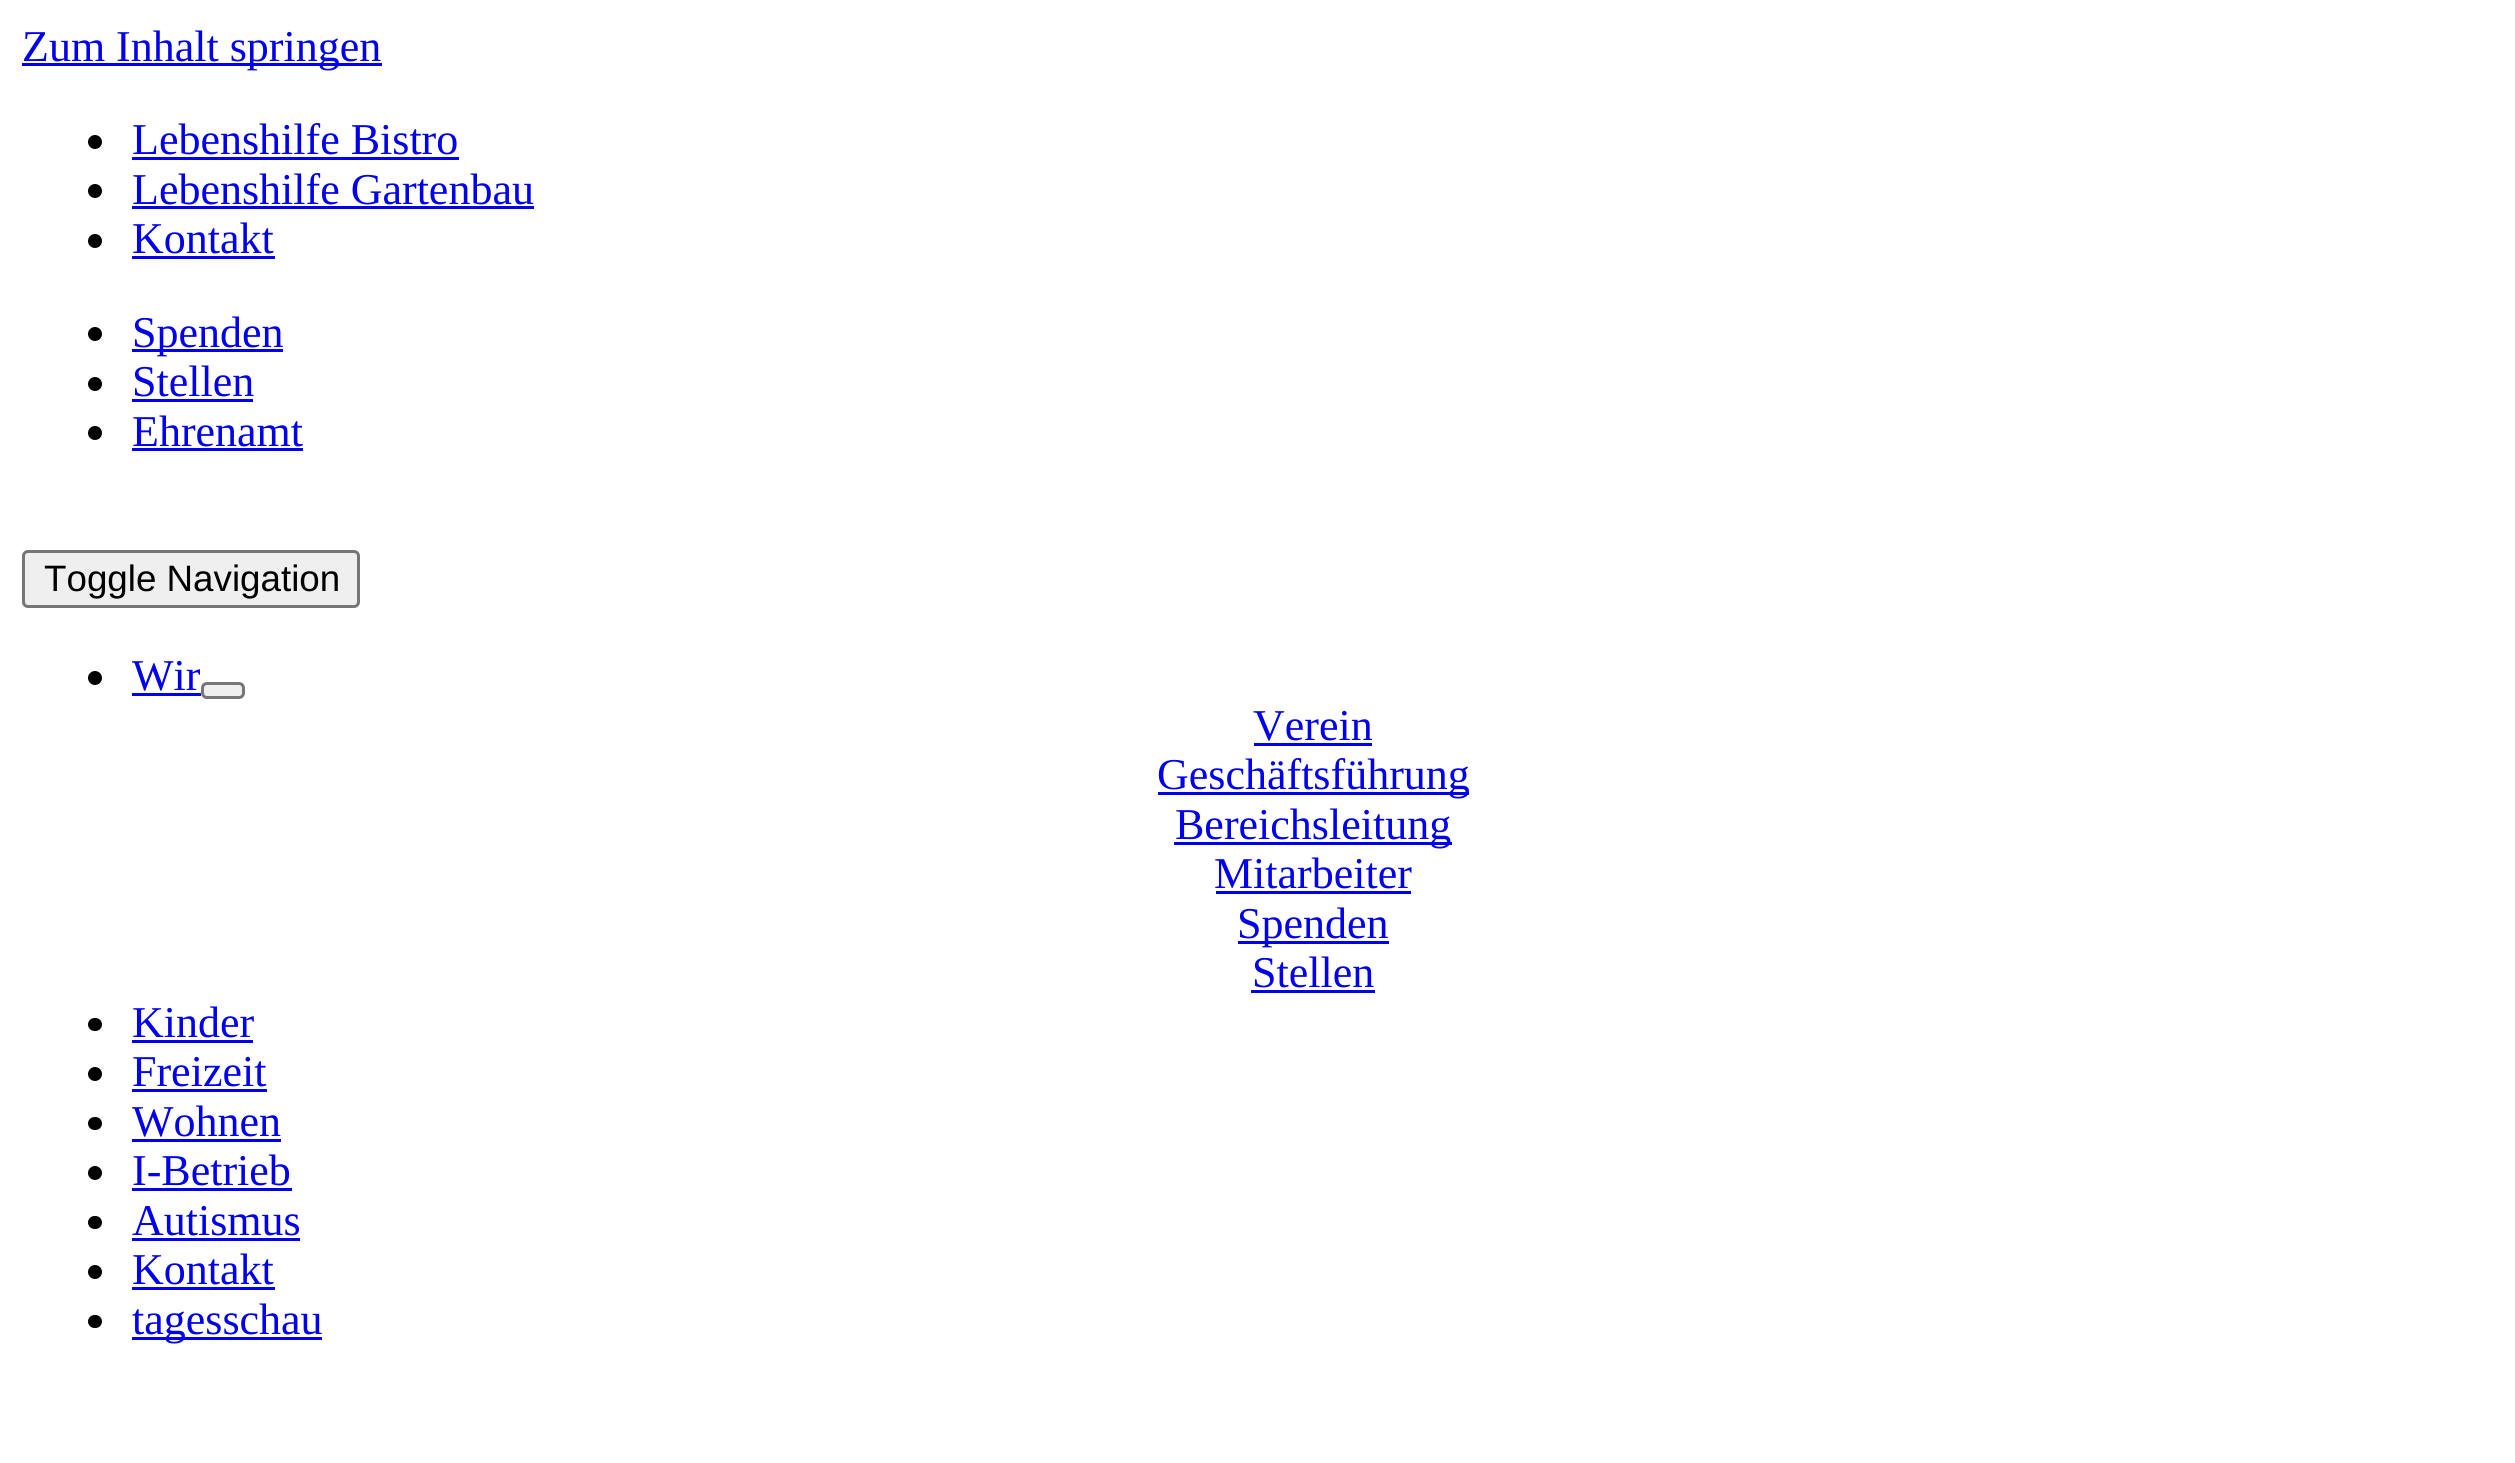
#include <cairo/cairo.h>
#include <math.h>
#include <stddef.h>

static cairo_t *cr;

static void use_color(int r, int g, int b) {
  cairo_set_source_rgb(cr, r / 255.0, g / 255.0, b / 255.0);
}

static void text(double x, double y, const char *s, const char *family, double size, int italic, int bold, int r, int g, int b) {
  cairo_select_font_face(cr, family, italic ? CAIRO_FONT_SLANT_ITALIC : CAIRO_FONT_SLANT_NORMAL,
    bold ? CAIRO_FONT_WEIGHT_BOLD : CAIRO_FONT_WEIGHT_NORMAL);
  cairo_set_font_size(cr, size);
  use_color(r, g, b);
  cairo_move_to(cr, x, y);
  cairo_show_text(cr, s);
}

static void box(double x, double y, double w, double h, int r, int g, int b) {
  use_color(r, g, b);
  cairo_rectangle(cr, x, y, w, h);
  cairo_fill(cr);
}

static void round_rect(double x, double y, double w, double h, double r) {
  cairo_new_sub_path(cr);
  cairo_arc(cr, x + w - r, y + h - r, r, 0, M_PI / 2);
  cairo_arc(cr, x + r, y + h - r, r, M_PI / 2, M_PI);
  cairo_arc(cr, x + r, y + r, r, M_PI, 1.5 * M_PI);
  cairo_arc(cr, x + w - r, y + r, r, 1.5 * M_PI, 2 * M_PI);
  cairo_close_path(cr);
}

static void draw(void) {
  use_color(255, 255, 255);
  cairo_paint(cr);
  box(22, 63, 360, 3, 0, 0, 238);
  use_color(0, 0, 0);
  cairo_arc(cr, 95, 142, 7, 0, 2 * M_PI);
  cairo_fill(cr);
  box(132, 157, 327, 3, 0, 0, 238);
  use_color(0, 0, 0);
  cairo_arc(cr, 95, 191, 7, 0, 2 * M_PI);
  cairo_fill(cr);
  box(132, 206, 402, 3, 0, 0, 238);
  use_color(0, 0, 0);
  cairo_arc(cr, 95, 241, 7, 0, 2 * M_PI);
  cairo_fill(cr);
  box(132, 256, 143, 3, 0, 0, 238);
  use_color(0, 0, 0);
  cairo_arc(cr, 95, 334, 7, 0, 2 * M_PI);
  cairo_fill(cr);
  box(132, 349, 151, 3, 0, 0, 238);
  use_color(0, 0, 0);
  cairo_arc(cr, 95, 384, 7, 0, 2 * M_PI);
  cairo_fill(cr);
  box(132, 399, 121, 3, 0, 0, 238);
  use_color(0, 0, 0);
  cairo_arc(cr, 95, 433, 7, 0, 2 * M_PI);
  cairo_fill(cr);
  box(132, 448, 171, 3, 0, 0, 238);
  use_color(239, 239, 239);
  round_rect(23.5, 551.5, 335, 55, 4.5);
  cairo_fill_preserve(cr);
  use_color(118, 118, 118);
  cairo_set_line_width(cr, 3);
  cairo_stroke(cr);
  use_color(0, 0, 0);
  cairo_arc(cr, 95, 678, 7, 0, 2 * M_PI);
  cairo_fill(cr);
  box(132, 693, 69, 3, 0, 0, 238);
  use_color(239, 239, 239);
  round_rect(202.5, 683.5, 41, 14, 4.5);
  cairo_fill_preserve(cr);
  use_color(118, 118, 118);
  cairo_stroke(cr);
  box(1254, 743, 118, 3, 0, 0, 238);
  box(1158, 792, 311, 3, 0, 0, 238);
  box(1174, 842, 278, 3, 0, 0, 238);
  box(1216, 891, 195, 3, 0, 0, 238);
  box(1238, 941, 151, 3, 0, 0, 238);
  box(1251, 990, 124, 3, 0, 0, 238);
  use_color(0, 0, 0);
  round_rect(88, 1018, 14, 13, 6.5);
  cairo_fill(cr);
  box(132, 1040, 121, 3, 0, 0, 238);
  use_color(0, 0, 0);
  cairo_arc(cr, 95, 1074, 7, 0, 2 * M_PI);
  cairo_fill(cr);
  box(132, 1089, 135, 3, 0, 0, 238);
  use_color(0, 0, 0);
  round_rect(88, 1117, 14, 13, 6.5);
  cairo_fill(cr);
  box(132, 1139, 149, 3, 0, 0, 238);
  use_color(0, 0, 0);
  cairo_arc(cr, 95, 1173, 7, 0, 2 * M_PI);
  cairo_fill(cr);
  box(132, 1188, 160, 3, 0, 0, 238);
  use_color(0, 0, 0);
  round_rect(88, 1216, 14, 13, 6.5);
  cairo_fill(cr);
  box(132, 1238, 168, 3, 0, 0, 238);
  use_color(0, 0, 0);
  cairo_arc(cr, 95, 1272, 7, 0, 2 * M_PI);
  cairo_fill(cr);
  box(132, 1287, 143, 3, 0, 0, 238);
  use_color(0, 0, 0);
  round_rect(88, 1315, 14, 13, 6.5);
  cairo_fill(cr);
  box(132, 1337, 190, 3, 0, 0, 238);
  text(22, 61, "Zum Inhalt springen", "Liberation Serif", 44, 0, 0, 0, 0, 238);
  text(132, 154, "Lebenshilfe Bistro", "Liberation Serif", 44, 0, 0, 0, 0, 238);
  text(132, 204, "Lebenshilfe Gartenbau", "Liberation Serif", 44, 0, 0, 0, 0, 238);
  text(132, 253, "Kontakt", "Liberation Serif", 44, 0, 0, 0, 0, 238);
  text(132, 347, "Spenden", "Liberation Serif", 44, 0, 0, 0, 0, 238);
  text(132, 396, "Stellen", "Liberation Serif", 44, 0, 0, 0, 0, 238);
  text(132, 446, "Ehrenamt", "Liberation Serif", 44, 0, 0, 0, 0, 238);
  text(44, 591, "Toggle Navigation", "Liberation Sans", 36.75, 0, 0, 0, 0, 0);
  text(132, 690, "Wir", "Liberation Serif", 44, 0, 0, 0, 0, 238);
  text(1253, 740, "Verein", "Liberation Serif", 44, 0, 0, 0, 0, 238);
  text(1157, 789, "Geschäftsführung", "Liberation Serif", 44, 0, 0, 0, 0, 238);
  text(1175, 839, "Bereichsleitung", "Liberation Serif", 44, 0, 0, 0, 0, 238);
  text(1214, 888, "Mitarbeiter", "Liberation Serif", 44, 0, 0, 0, 0, 238);
  text(1237, 938, "Spenden", "Liberation Serif", 44, 0, 0, 0, 0, 238);
  text(1252, 987, "Stellen", "Liberation Serif", 44, 0, 0, 0, 0, 238);
  text(132, 1037, "Kinder", "Liberation Serif", 44, 0, 0, 0, 0, 238);
  text(132, 1086, "Freizeit", "Liberation Serif", 44, 0, 0, 0, 0, 238);
  text(132, 1136, "Wohnen", "Liberation Serif", 44, 0, 0, 0, 0, 238);
  text(132, 1185, "I-Betrieb", "Liberation Serif", 44, 0, 0, 0, 0, 238);
  text(132, 1235, "Autismus", "Liberation Serif", 44, 0, 0, 0, 0, 238);
  text(132, 1284, "Kontakt", "Liberation Serif", 44, 0, 0, 0, 0, 238);
  text(132, 1334, "tagesschau", "Liberation Serif", 44, 0, 0, 0, 0, 238);
}

int main(void) {
  cairo_surface_t *surface = cairo_image_surface_create(CAIRO_FORMAT_RGB24, 2515, 1463);
  cr = cairo_create(surface);
  cairo_font_options_t *options = cairo_font_options_create();
  cairo_font_options_set_hint_metrics(options, CAIRO_HINT_METRICS_OFF);
  cairo_font_options_set_hint_style(options, CAIRO_HINT_STYLE_NONE);
  cairo_set_font_options(cr, options);
  cairo_set_miter_limit(cr, 4);
  draw();
  cairo_surface_write_to_png(surface, "out.png");
  cairo_font_options_destroy(options);
  cairo_destroy(cr);
  cairo_surface_destroy(surface);
  return 0;
}
